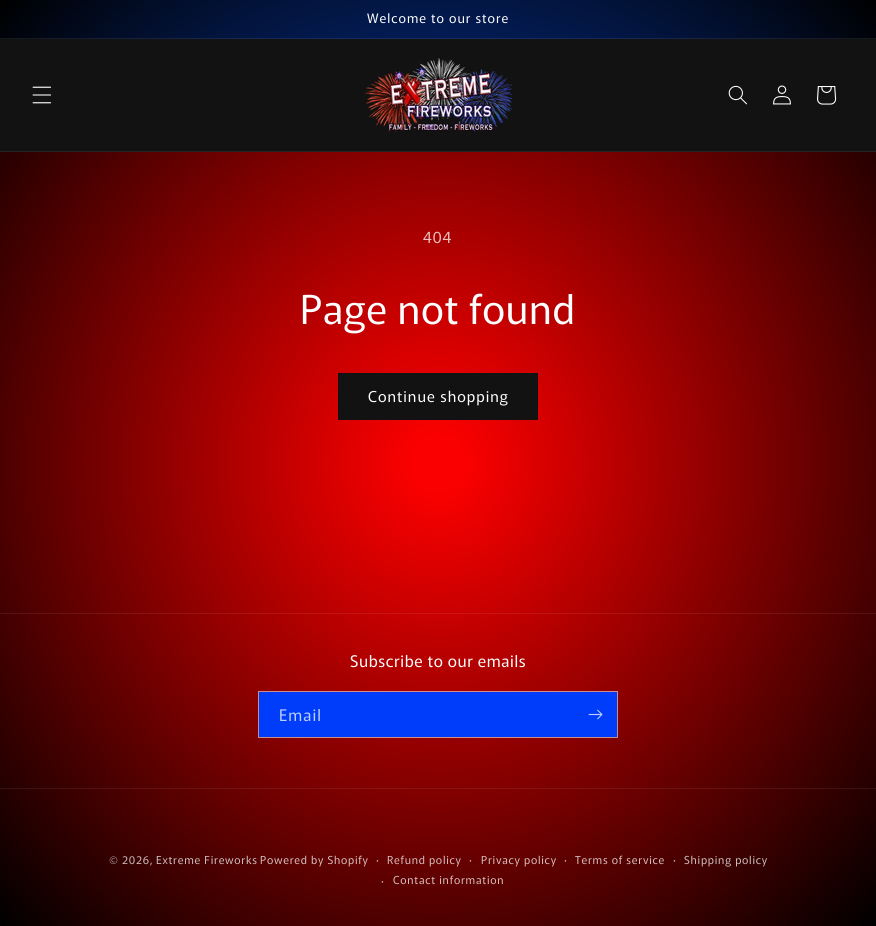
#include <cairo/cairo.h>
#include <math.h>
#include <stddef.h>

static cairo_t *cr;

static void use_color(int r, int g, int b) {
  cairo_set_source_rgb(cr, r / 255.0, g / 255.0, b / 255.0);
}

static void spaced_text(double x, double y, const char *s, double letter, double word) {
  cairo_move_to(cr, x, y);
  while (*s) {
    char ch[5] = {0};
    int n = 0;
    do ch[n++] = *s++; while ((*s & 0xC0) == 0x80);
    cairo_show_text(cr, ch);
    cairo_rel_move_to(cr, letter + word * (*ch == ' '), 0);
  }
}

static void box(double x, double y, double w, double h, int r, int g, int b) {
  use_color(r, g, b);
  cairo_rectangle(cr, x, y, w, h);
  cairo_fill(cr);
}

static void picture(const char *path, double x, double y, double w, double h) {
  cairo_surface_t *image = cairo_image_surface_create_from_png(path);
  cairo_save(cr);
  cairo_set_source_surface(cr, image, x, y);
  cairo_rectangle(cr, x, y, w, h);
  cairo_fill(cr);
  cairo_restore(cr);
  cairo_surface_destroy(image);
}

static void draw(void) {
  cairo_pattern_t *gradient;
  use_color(255, 255, 255);
  cairo_paint(cr);
  gradient = cairo_pattern_create_radial(0, 0, 0, 0, 0, 1);
  cairo_pattern_set_matrix(gradient, &(cairo_matrix_t){1.0 / 619, 0, 0, 1.0 / 655, -1.0 * 438 / 619, -1.0 * 463 / 655});
  cairo_pattern_add_color_stop_rgba(gradient, 0.04, 0.984, 0, 0, 1);
  cairo_pattern_add_color_stop_rgba(gradient, 1, 0, 0, 0, 1);
  cairo_set_source(cr, gradient);
  cairo_pattern_destroy(gradient);
  cairo_rectangle(cr, 0, 152, 876, 774);
  cairo_fill(cr);
  gradient = cairo_pattern_create_radial(0, 0, 0, 0, 0, 1);
  cairo_pattern_set_matrix(gradient, &(cairo_matrix_t){1.0 / 619, 0, 0, 1.0 / 655, -1.0 * 438 / 619, -1.0 * 463 / 655});
  cairo_pattern_add_color_stop_rgba(gradient, 0.04, 0.984, 0.078, 0.078, 1);
  cairo_pattern_add_color_stop_rgba(gradient, 1, 0.078, 0.078, 0.078, 1);
  cairo_set_source(cr, gradient);
  cairo_pattern_destroy(gradient);
  cairo_rectangle(cr, 0, 788, 876, 1);
  cairo_fill(cr);
  cairo_rectangle(cr, 0, 613, 876, 1);
  cairo_fill(cr);
  gradient = cairo_pattern_create_radial(0, 0, 0, 0, 0, 1);
  cairo_pattern_set_matrix(gradient, &(cairo_matrix_t){1.0 / 619, 0, 0, 1.0 / 655, -1.0 * 438 / 619, -1.0 * 463 / 655});
  cairo_pattern_add_color_stop_rgba(gradient, 0, 0.039, 0.306, 0.929, 1);
  cairo_pattern_add_color_stop_rgba(gradient, 1, 0, 0, 0, 1);
  cairo_set_source(cr, gradient);
  cairo_pattern_destroy(gradient);
  cairo_rectangle(cr, 0, 0, 876, 38);
  cairo_fill(cr);
  gradient = cairo_pattern_create_radial(0, 0, 0, 0, 0, 1);
  cairo_pattern_set_matrix(gradient, &(cairo_matrix_t){1.0 / 619, 0, 0, 1.0 / 655, -1.0 * 438 / 619, -1.0 * 463 / 655});
  cairo_pattern_add_color_stop_rgba(gradient, 0, 0.118, 0.361, 0.933, 1);
  cairo_pattern_add_color_stop_rgba(gradient, 1, 0.078, 0.078, 0.078, 1);
  cairo_set_source(cr, gradient);
  cairo_pattern_destroy(gradient);
  cairo_rectangle(cr, 0, 38, 876, 1);
  cairo_fill(cr);
  box(0, 39, 876, 112, 18, 18, 18);
  box(0, 151, 876, 1, 37, 37, 37);
  picture("img_01.png", 32, 86, 20, 18);
  picture("img_02.png", 365, 58, 148, 74);
  picture("img_03.png", 728, 85, 19, 20);
  picture("img_04.png", 773, 85, 18, 20);
  picture("img_05.png", 817, 86, 20, 19);
  box(338, 373, 200, 47, 18, 18, 18);
  box(259, 692, 358, 45, 0, 61, 250);
  cairo_rectangle(cr, 258.5, 691.5, 359, 46);
  cairo_set_source_rgba(cr, 1, 1, 1, 0.55);
  cairo_set_line_width(cr, 1);
  cairo_stroke(cr);
  picture("img_06.png", 588, 709, 15, 11);
  cairo_select_font_face(cr, "Murecho", CAIRO_FONT_SLANT_NORMAL, CAIRO_FONT_WEIGHT_NORMAL);
  cairo_set_font_size(cr, 13);
  use_color(255, 255, 255);
  spaced_text(367, 23, "Welcome to our store", 1, 0);
  cairo_set_font_size(cr, 16);
  use_color(234, 191, 191);
  spaced_text(423, 243, "404", 0.6, 0);
  cairo_set_font_size(cr, 40);
  use_color(255, 255, 255);
  spaced_text(300, 324, "Page not found", 0.6, 0);
  cairo_set_font_size(cr, 15);
  spaced_text(368, 402, "Continue shopping", 1, 0);
  cairo_set_font_size(cr, 16);
  spaced_text(350, 667, "Subscribe to our emails", 0.6, 0);
  use_color(191, 207, 254);
  spaced_text(279, 721, "Email", 1, 0);
  cairo_set_font_size(cr, 11);
  use_color(205, 191, 191);
  spaced_text(109, 864, "© 2026,", 0.75, 0);
  spaced_text(156, 864, "Extreme Fireworks", 0.75, 0);
  use_color(215, 191, 191);
  spaced_text(260, 864, "Powered by Shopify", 0.75, 0);
  cairo_set_font_size(cr, 12);
  spaced_text(376, 864, "·", 0.75, 0);
  cairo_set_font_size(cr, 11);
  spaced_text(387, 864, "Refund policy", 0.75, 0);
  cairo_set_font_size(cr, 12);
  spaced_text(469, 864, "·", 0.75, 0);
  cairo_set_font_size(cr, 11);
  spaced_text(481, 864, "Privacy policy", 0.75, 0);
  cairo_set_font_size(cr, 12);
  spaced_text(564, 864, "·", 0.75, 0);
  cairo_set_font_size(cr, 11);
  spaced_text(575, 864, "Terms of service", 0.75, 0);
  cairo_set_font_size(cr, 12);
  use_color(205, 191, 191);
  spaced_text(673, 864, "·", 0.75, 0);
  cairo_set_font_size(cr, 11);
  spaced_text(684, 864, "Shipping policy", 0.75, 0);
  cairo_set_font_size(cr, 12);
  use_color(215, 191, 191);
  spaced_text(381, 885, "·", 0.75, 0);
  cairo_set_font_size(cr, 11);
  spaced_text(393, 884, "Contact information", 0.75, 0);
}

int main(void) {
  cairo_surface_t *surface = cairo_image_surface_create(CAIRO_FORMAT_RGB24, 876, 926);
  cr = cairo_create(surface);
  cairo_font_options_t *options = cairo_font_options_create();
  cairo_font_options_set_hint_metrics(options, CAIRO_HINT_METRICS_OFF);
  cairo_font_options_set_hint_style(options, CAIRO_HINT_STYLE_NONE);
  cairo_set_font_options(cr, options);
  cairo_set_miter_limit(cr, 4);
  draw();
  cairo_surface_write_to_png(surface, "out.png");
  cairo_font_options_destroy(options);
  cairo_destroy(cr);
  cairo_surface_destroy(surface);
  return 0;
}
